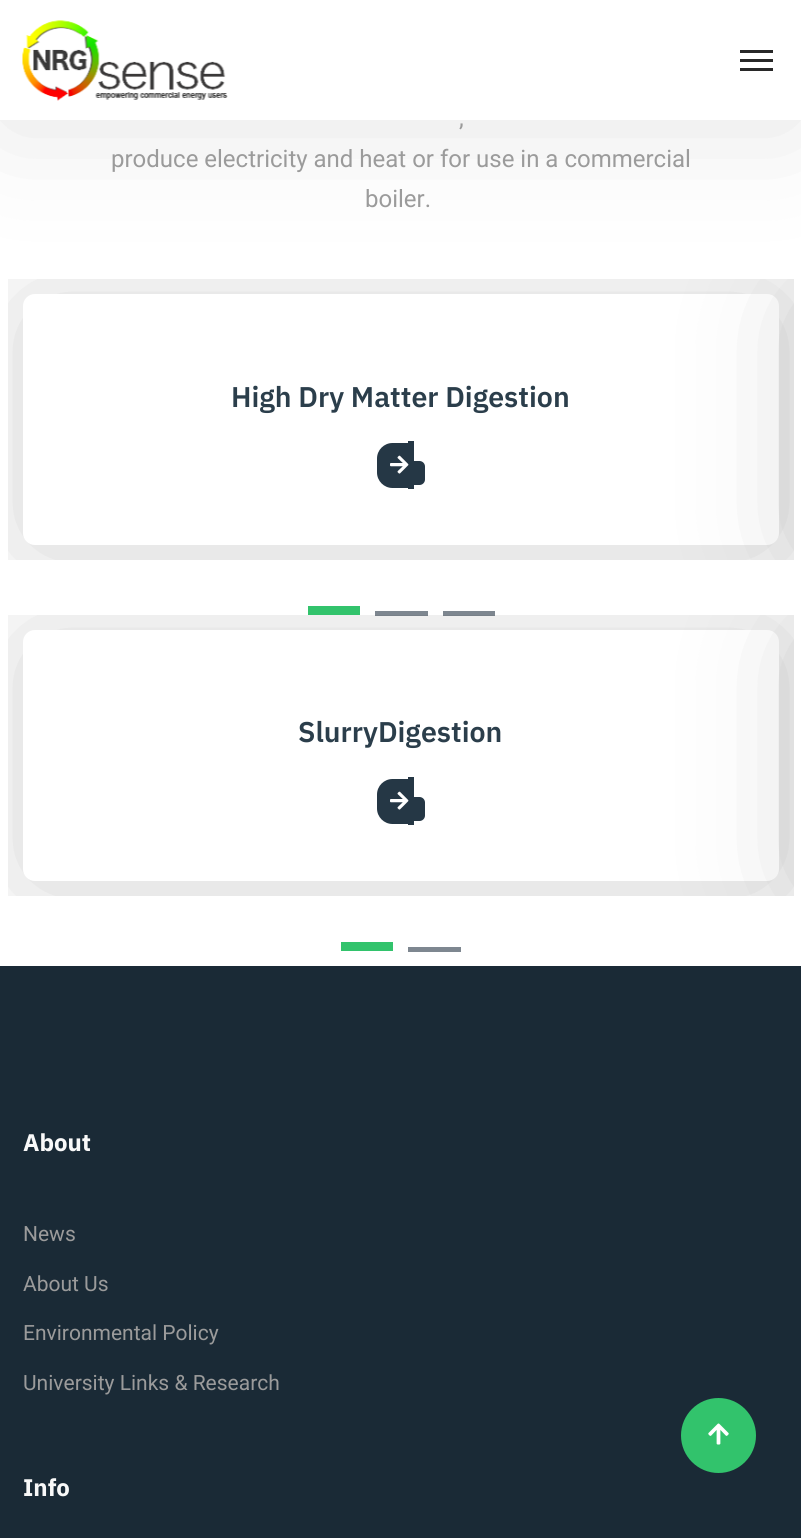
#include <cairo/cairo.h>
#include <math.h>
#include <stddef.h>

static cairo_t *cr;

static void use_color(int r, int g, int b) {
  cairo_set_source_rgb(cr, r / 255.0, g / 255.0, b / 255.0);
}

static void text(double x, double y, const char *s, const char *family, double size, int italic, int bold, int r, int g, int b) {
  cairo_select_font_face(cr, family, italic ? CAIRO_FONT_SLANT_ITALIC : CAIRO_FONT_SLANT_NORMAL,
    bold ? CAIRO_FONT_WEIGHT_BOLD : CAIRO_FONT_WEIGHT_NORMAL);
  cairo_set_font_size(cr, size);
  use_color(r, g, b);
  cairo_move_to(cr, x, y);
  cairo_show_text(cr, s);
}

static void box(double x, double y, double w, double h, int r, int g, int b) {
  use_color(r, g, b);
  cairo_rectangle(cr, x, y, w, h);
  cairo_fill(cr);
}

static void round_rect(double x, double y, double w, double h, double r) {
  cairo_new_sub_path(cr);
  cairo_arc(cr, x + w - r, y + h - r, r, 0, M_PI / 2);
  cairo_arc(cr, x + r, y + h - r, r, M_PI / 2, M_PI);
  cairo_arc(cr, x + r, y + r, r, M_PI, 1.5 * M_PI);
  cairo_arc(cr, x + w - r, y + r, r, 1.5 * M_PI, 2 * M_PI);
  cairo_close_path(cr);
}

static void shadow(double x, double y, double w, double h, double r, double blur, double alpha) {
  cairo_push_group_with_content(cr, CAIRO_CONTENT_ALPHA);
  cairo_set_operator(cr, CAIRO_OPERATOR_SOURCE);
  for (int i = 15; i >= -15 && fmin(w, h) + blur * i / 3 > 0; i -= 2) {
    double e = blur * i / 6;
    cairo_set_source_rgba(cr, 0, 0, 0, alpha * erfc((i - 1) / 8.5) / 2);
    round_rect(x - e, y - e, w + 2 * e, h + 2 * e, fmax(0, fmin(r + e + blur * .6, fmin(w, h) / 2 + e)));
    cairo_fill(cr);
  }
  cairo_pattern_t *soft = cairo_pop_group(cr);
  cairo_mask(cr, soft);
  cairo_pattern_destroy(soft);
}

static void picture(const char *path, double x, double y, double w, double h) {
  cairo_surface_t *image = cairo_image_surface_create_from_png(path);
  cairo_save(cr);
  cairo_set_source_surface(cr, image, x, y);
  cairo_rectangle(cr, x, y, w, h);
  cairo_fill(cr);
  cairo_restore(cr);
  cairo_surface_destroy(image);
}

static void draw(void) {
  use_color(255, 255, 255);
  cairo_paint(cr);
  cairo_save(cr);
  cairo_rectangle(cr, 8, 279, 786, 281);
  cairo_clip(cr);
  use_color(40, 40, 40);
  shadow(23, 302, 756, 250, 12, 62, 0.21);
  cairo_restore(cr);
  use_color(255, 255, 255);
  round_rect(23, 294, 756, 251, 12);
  cairo_fill(cr);
  use_color(40, 40, 40);
  shadow(0, 8, 801, 120, 0, 62, 0.12);
  cairo_save(cr);
  cairo_rectangle(cr, 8, 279, 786, 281);
  cairo_clip(cr);
  shadow(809, 302, 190, 250, 12, 62, 0.21);
  cairo_restore(cr);
  box(0, 0, 801, 120, 255, 255, 255);
  picture("img_01.png", 22, 20, 206, 81);
  box(740, 50, 33, 3, 40, 40, 40);
  box(740, 59, 33, 3, 40, 40, 40);
  box(740, 68, 33, 3, 40, 40, 40);
  use_color(37, 55, 69);
  cairo_new_path(cr);
  cairo_move_to(cr, 392.5, 443);
  cairo_line_to(cr, 408, 443);
  cairo_line_to(cr, 408, 488);
  cairo_line_to(cr, 392.5, 488);
  cairo_curve_to(cr, 384, 488, 377, 481, 377, 472.5);
  cairo_line_to(cr, 377, 458.5);
  cairo_curve_to(cr, 377, 450, 384, 443, 392.5, 443);
  cairo_close_path(cr);
  cairo_fill(cr);
  box(408, 441, 6, 48, 37, 55, 69);
  cairo_new_path(cr);
  cairo_move_to(cr, 414, 461);
  cairo_line_to(cr, 419.5, 461);
  cairo_curve_to(cr, 422.5, 461, 425, 463.5, 425, 466.5);
  cairo_line_to(cr, 425, 479.5);
  cairo_curve_to(cr, 425, 482.5, 422.5, 485, 419.5, 485);
  cairo_line_to(cr, 414, 485);
  cairo_close_path(cr);
  cairo_fill(cr);
  picture("img_02.png", 390, 455, 19, 19);
  box(308, 606, 52, 9, 50, 195, 108);
  box(375, 611, 53, 5, 126, 135, 144);
  box(443, 611, 52, 5, 126, 135, 144);
  cairo_save(cr);
  cairo_rectangle(cr, 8, 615, 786, 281);
  cairo_clip(cr);
  use_color(40, 40, 40);
  shadow(23, 638, 756, 250, 12, 62, 0.21);
  cairo_restore(cr);
  use_color(255, 255, 255);
  round_rect(23, 630, 756, 251, 12);
  cairo_fill(cr);
  use_color(37, 55, 69);
  cairo_new_path(cr);
  cairo_move_to(cr, 392.5, 779);
  cairo_line_to(cr, 408, 779);
  cairo_line_to(cr, 408, 824);
  cairo_line_to(cr, 392.5, 824);
  cairo_curve_to(cr, 384, 824, 377, 817, 377, 808.5);
  cairo_line_to(cr, 377, 794.5);
  cairo_curve_to(cr, 377, 786, 384, 779, 392.5, 779);
  cairo_close_path(cr);
  cairo_fill(cr);
  box(408, 777, 6, 48, 37, 55, 69);
  cairo_new_path(cr);
  cairo_move_to(cr, 414, 797);
  cairo_line_to(cr, 419.5, 797);
  cairo_curve_to(cr, 422.5, 797, 425, 799.5, 425, 802.5);
  cairo_line_to(cr, 425, 815.5);
  cairo_curve_to(cr, 425, 818.5, 422.5, 821, 419.5, 821);
  cairo_line_to(cr, 414, 821);
  cairo_close_path(cr);
  cairo_fill(cr);
  picture("img_02.png", 390, 791, 19, 19);
  cairo_save(cr);
  cairo_rectangle(cr, 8, 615, 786, 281);
  cairo_clip(cr);
  use_color(40, 40, 40);
  shadow(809, 638, 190, 250, 12, 62, 0.21);
  cairo_restore(cr);
  box(341, 942, 52, 9, 50, 195, 108);
  box(408, 947, 53, 5, 126, 135, 144);
  box(0, 966, 801, 572, 26, 42, 54);
  use_color(50, 195, 108);
  cairo_arc(cr, 718.5, 1435.5, 37.5, 0, 2 * M_PI);
  cairo_fill(cr);
  picture("img_03.png", 708, 1423, 21, 22);
  text(459, 126, ",", "Roboto", 24, 0, 0, 155, 155, 155);
  text(111, 167, "produce electricity and heat or for use in a commercial", "Roboto", 24, 0, 0, 155, 155, 155);
  text(365, 207, "boiler.", "Roboto", 24, 0, 0, 155, 155, 155);
  text(231, 407, "High Dry Matter Digestion", "IBM Plex Sans SemiBold", 28.5, 0, 0, 43, 62, 75);
  text(298, 742, "SlurryDigestion", "IBM Plex Sans SemiBold", 28.5, 0, 0, 43, 62, 75);
  text(23, 1151, "About", "IBM Plex Sans", 24, 0, 1, 249, 249, 249);
  text(23, 1241, "News", "Roboto", 21, 0, 0, 155, 155, 155);
  text(23, 1291, "About Us", "Roboto", 21, 0, 0, 155, 155, 155);
  text(23, 1340, "Environmental Policy", "Roboto", 21, 0, 0, 155, 155, 155);
  text(23, 1390, "University Links & Research", "Roboto", 21, 0, 0, 155, 155, 155);
  text(23, 1496, "Info", "IBM Plex Sans", 24, 0, 1, 249, 249, 249);
}

int main(void) {
  cairo_surface_t *surface = cairo_image_surface_create(CAIRO_FORMAT_RGB24, 801, 1538);
  cr = cairo_create(surface);
  cairo_font_options_t *options = cairo_font_options_create();
  cairo_font_options_set_hint_metrics(options, CAIRO_HINT_METRICS_OFF);
  cairo_font_options_set_hint_style(options, CAIRO_HINT_STYLE_NONE);
  cairo_set_font_options(cr, options);
  cairo_set_miter_limit(cr, 4);
  draw();
  cairo_surface_write_to_png(surface, "out.png");
  cairo_font_options_destroy(options);
  cairo_destroy(cr);
  cairo_surface_destroy(surface);
  return 0;
}
